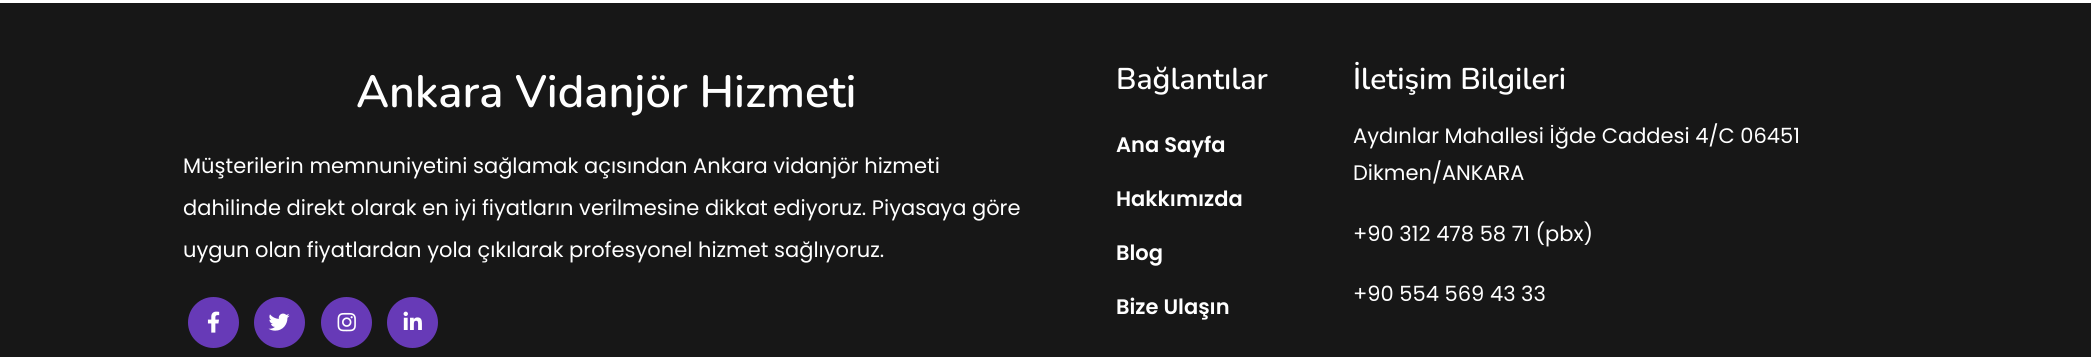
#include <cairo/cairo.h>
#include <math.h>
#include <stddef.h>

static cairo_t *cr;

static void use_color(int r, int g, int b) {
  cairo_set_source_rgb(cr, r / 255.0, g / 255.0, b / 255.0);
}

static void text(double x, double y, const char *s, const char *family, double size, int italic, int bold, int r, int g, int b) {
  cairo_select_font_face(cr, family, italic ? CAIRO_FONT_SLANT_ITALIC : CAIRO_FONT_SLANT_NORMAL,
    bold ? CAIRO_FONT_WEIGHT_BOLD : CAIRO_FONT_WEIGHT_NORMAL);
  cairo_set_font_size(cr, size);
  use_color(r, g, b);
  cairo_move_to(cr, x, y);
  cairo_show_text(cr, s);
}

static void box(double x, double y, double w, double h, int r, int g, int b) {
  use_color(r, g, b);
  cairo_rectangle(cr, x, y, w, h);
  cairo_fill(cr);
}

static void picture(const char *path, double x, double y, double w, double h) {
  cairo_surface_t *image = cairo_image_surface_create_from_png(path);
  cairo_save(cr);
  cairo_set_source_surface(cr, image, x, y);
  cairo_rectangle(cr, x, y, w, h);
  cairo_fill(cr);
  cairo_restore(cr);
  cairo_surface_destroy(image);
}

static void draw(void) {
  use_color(255, 255, 255);
  cairo_paint(cr);
  box(0, 3, 2091, 354, 23, 23, 23);
  use_color(103, 58, 183);
  cairo_arc(cr, 213.5, 322.5, 25.5, 0, 2 * M_PI);
  cairo_fill(cr);
  picture("img_01.png", 207, 311, 13, 22);
  cairo_arc(cr, 279.5, 322.5, 25.5, 0, 2 * M_PI);
  cairo_fill(cr);
  picture("img_02.png", 268, 313, 22, 18);
  cairo_arc(cr, 346.5, 322.5, 25.5, 0, 2 * M_PI);
  cairo_fill(cr);
  picture("img_03.png", 337, 312, 19, 20);
  cairo_arc(cr, 412.5, 322.5, 25.5, 0, 2 * M_PI);
  cairo_fill(cr);
  picture("img_04.png", 403, 311, 19, 19);
  text(356, 107, "Ankara Vidanjör Hizmeti", "Nunito SemiBold", 45, 0, 0, 255, 255, 255);
  text(183, 173, "Müşterilerin memnuniyetini sağlamak açısından Ankara vidanjör hizmeti", "Poppins", 21, 0, 0, 255, 255, 255);
  text(183, 215, "dahilinde direkt olarak en iyi fiyatların verilmesine dikkat ediyoruz. Piyasaya göre", "Poppins", 21, 0, 0, 255, 255, 255);
  text(183, 257, "uygun olan fiyatlardan yola çıkılarak profesyonel hizmet sağlıyoruz.", "Poppins", 21, 0, 0, 255, 255, 255);
  text(1116, 89, "Bağlantılar", "Nunito SemiBold", 30, 0, 0, 255, 255, 255);
  text(1116, 152, "Ana Sayfa", "Poppins SemiBold", 21, 0, 0, 255, 255, 255);
  text(1116, 206, "Hakkımızda", "Poppins SemiBold", 21, 0, 0, 255, 255, 255);
  text(1116, 260, "Blog", "Poppins SemiBold", 21, 0, 0, 255, 255, 255);
  text(1116, 314, "Bize Ulaşın", "Poppins SemiBold", 21, 0, 0, 255, 255, 255);
  text(1353, 89, "İletişim Bilgileri", "Nunito SemiBold", 30, 0, 0, 255, 255, 255);
  text(1353, 143, "Aydınlar Mahallesi İğde Caddesi 4/C 06451", "Poppins", 21, 0, 0, 255, 255, 255);
  text(1353, 180, "Dikmen/ANKARA", "Poppins", 21, 0, 0, 255, 255, 255);
  text(1353, 241, "+90 312 478 58 71 (pbx)", "Poppins", 21, 0, 0, 255, 255, 255);
  text(1353, 301, "+90 554 569 43 33", "Poppins", 21, 0, 0, 255, 255, 255);
}

int main(void) {
  cairo_surface_t *surface = cairo_image_surface_create(CAIRO_FORMAT_RGB24, 2091, 357);
  cr = cairo_create(surface);
  cairo_font_options_t *options = cairo_font_options_create();
  cairo_font_options_set_hint_metrics(options, CAIRO_HINT_METRICS_OFF);
  cairo_font_options_set_hint_style(options, CAIRO_HINT_STYLE_NONE);
  cairo_set_font_options(cr, options);
  cairo_set_miter_limit(cr, 4);
  draw();
  cairo_surface_write_to_png(surface, "out.png");
  cairo_font_options_destroy(options);
  cairo_destroy(cr);
  cairo_surface_destroy(surface);
  return 0;
}
